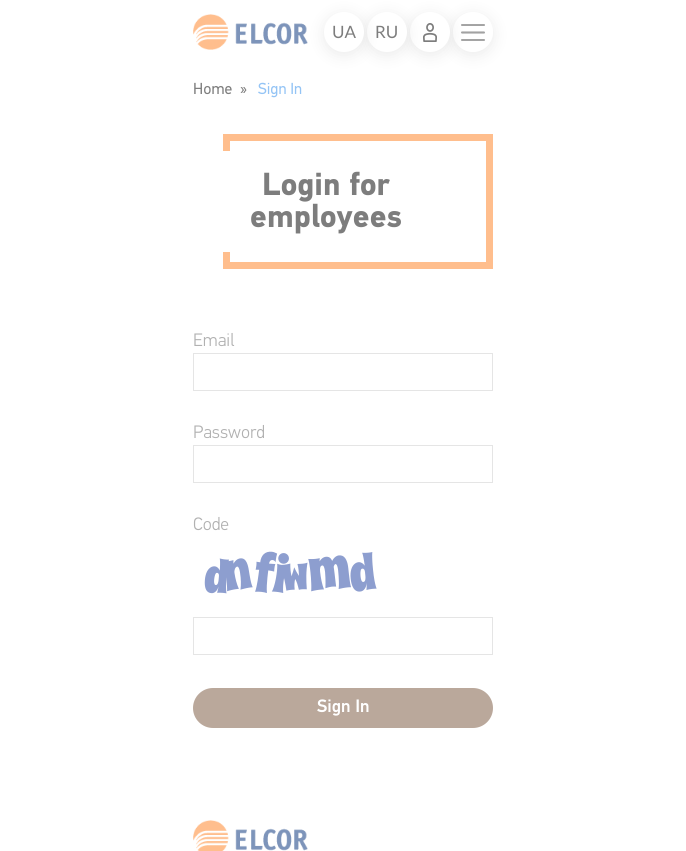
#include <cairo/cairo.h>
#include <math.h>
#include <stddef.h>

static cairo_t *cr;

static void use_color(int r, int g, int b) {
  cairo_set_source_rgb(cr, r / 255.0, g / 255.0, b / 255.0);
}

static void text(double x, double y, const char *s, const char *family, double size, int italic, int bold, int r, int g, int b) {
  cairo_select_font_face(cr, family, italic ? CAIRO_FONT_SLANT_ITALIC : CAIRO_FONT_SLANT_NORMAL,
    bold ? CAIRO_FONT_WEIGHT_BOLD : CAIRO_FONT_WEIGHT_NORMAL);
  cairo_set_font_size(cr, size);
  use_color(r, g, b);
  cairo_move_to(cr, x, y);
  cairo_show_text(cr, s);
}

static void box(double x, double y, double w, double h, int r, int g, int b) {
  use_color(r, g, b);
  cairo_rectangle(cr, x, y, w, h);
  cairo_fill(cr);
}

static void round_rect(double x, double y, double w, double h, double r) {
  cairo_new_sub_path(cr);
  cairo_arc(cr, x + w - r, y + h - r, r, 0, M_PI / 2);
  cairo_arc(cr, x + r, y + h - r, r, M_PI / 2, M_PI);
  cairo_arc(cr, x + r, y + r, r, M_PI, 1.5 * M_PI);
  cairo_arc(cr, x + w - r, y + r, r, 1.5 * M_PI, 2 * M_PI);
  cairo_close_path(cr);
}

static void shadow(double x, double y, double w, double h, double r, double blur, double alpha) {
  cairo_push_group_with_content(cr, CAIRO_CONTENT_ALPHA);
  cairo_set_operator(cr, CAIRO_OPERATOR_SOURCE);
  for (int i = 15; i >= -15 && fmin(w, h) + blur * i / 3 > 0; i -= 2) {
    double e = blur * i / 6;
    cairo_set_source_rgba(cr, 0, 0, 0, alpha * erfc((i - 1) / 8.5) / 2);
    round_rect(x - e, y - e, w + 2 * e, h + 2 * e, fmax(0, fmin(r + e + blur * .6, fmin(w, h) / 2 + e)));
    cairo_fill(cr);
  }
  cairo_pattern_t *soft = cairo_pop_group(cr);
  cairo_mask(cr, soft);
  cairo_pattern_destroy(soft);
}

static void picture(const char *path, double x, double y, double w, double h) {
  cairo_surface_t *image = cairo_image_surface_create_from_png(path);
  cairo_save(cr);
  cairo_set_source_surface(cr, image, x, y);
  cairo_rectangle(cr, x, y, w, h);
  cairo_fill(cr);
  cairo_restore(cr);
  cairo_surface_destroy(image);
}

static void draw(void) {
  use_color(255, 255, 255);
  cairo_paint(cr);
  picture("img_01.png", 193, 14, 115, 36);
  cairo_save(cr);
  cairo_set_fill_rule(cr, CAIRO_FILL_RULE_EVEN_ODD);
  cairo_new_path(cr);
  cairo_move_to(cr, 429, 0);
  cairo_line_to(cr, 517, 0);
  cairo_line_to(cr, 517, 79);
  cairo_line_to(cr, 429, 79);
  cairo_close_path(cr);
  cairo_move_to(cr, 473, 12);
  cairo_curve_to(cr, 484, 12, 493, 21, 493, 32);
  cairo_curve_to(cr, 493, 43, 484, 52, 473, 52);
  cairo_curve_to(cr, 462, 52, 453, 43, 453, 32);
  cairo_curve_to(cr, 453, 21, 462, 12, 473, 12);
  cairo_close_path(cr);
  cairo_clip(cr);
  use_color(125, 125, 125);
  shadow(453, 15, 40, 40, 20, 7.5, 0.15);
  cairo_restore(cr);
  picture("img_03.png", 461, 24, 24, 17);
  use_color(125, 125, 125);
  shadow(410, 15, 40, 40, 20, 7.5, 0.15);
  use_color(255, 255, 255);
  cairo_arc(cr, 430, 32, 20, 0, 2 * M_PI);
  cairo_fill(cr);
  picture("img_02.png", 423, 23, 14, 19);
  use_color(125, 125, 125);
  shadow(367, 15, 40, 40, 20, 7.5, 0.15);
  use_color(255, 255, 255);
  cairo_arc(cr, 387, 32, 20, 0, 2 * M_PI);
  cairo_fill(cr);
  use_color(125, 125, 125);
  shadow(324, 15, 40, 40, 20, 7.5, 0.15);
  use_color(255, 255, 255);
  cairo_arc(cr, 344, 32, 20, 0, 2 * M_PI);
  cairo_fill(cr);
  picture("img_04.png", 240, 87, 7, 6);
  cairo_rectangle(cr, 226.5, 137.5, 263, 128);
  use_color(255, 190, 141);
  cairo_set_line_width(cr, 7);
  cairo_stroke(cr);
  box(223, 151, 7, 101, 255, 255, 255);
  cairo_rectangle(cr, 193.5, 353.5, 299, 37);
  use_color(229, 229, 229);
  cairo_set_line_width(cr, 1);
  cairo_stroke(cr);
  cairo_rectangle(cr, 193.5, 445.5, 299, 37);
  cairo_stroke(cr);
  picture("img_05.png", 204, 551, 173, 43);
  cairo_rectangle(cr, 193.5, 617.5, 299, 37);
  cairo_stroke(cr);
  use_color(186, 168, 155);
  round_rect(193, 688, 300, 40, 20);
  cairo_fill(cr);
  picture("img_06.png", 193, 820, 115, 31);
  text(332, 38, "UA", "Lato", 17, 0, 0, 125, 125, 125);
  text(375, 38, "RU", "Lato", 17, 0, 0, 125, 125, 125);
  text(193, 94, "Home", "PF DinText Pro", 16, 0, 0, 125, 125, 125);
  text(258, 94, "Sign In", "PF DinText Pro", 16, 0, 0, 148, 196, 245);
  text(262, 195, "Login for", "PF DinText Pro", 32, 0, 1, 125, 125, 125);
  text(250, 227, "employees", "PF DinText Pro", 32, 0, 1, 125, 125, 125);
  text(193, 346, "Email", "PF DinText Pro Light", 18, 0, 0, 177, 177, 177);
  text(193, 438, "Password", "PF DinText Pro Light", 18, 0, 0, 177, 177, 177);
  text(193, 530, "Code", "PF DinText Pro Light", 18, 0, 0, 177, 177, 177);
  text(317, 712, "Sign In", "PF DinText Pro Medium", 18, 0, 0, 255, 255, 255);
}

int main(void) {
  cairo_surface_t *surface = cairo_image_surface_create(CAIRO_FORMAT_RGB24, 686, 851);
  cr = cairo_create(surface);
  cairo_font_options_t *options = cairo_font_options_create();
  cairo_font_options_set_hint_metrics(options, CAIRO_HINT_METRICS_OFF);
  cairo_font_options_set_hint_style(options, CAIRO_HINT_STYLE_NONE);
  cairo_set_font_options(cr, options);
  cairo_set_miter_limit(cr, 4);
  draw();
  cairo_surface_write_to_png(surface, "out.png");
  cairo_font_options_destroy(options);
  cairo_destroy(cr);
  cairo_surface_destroy(surface);
  return 0;
}
